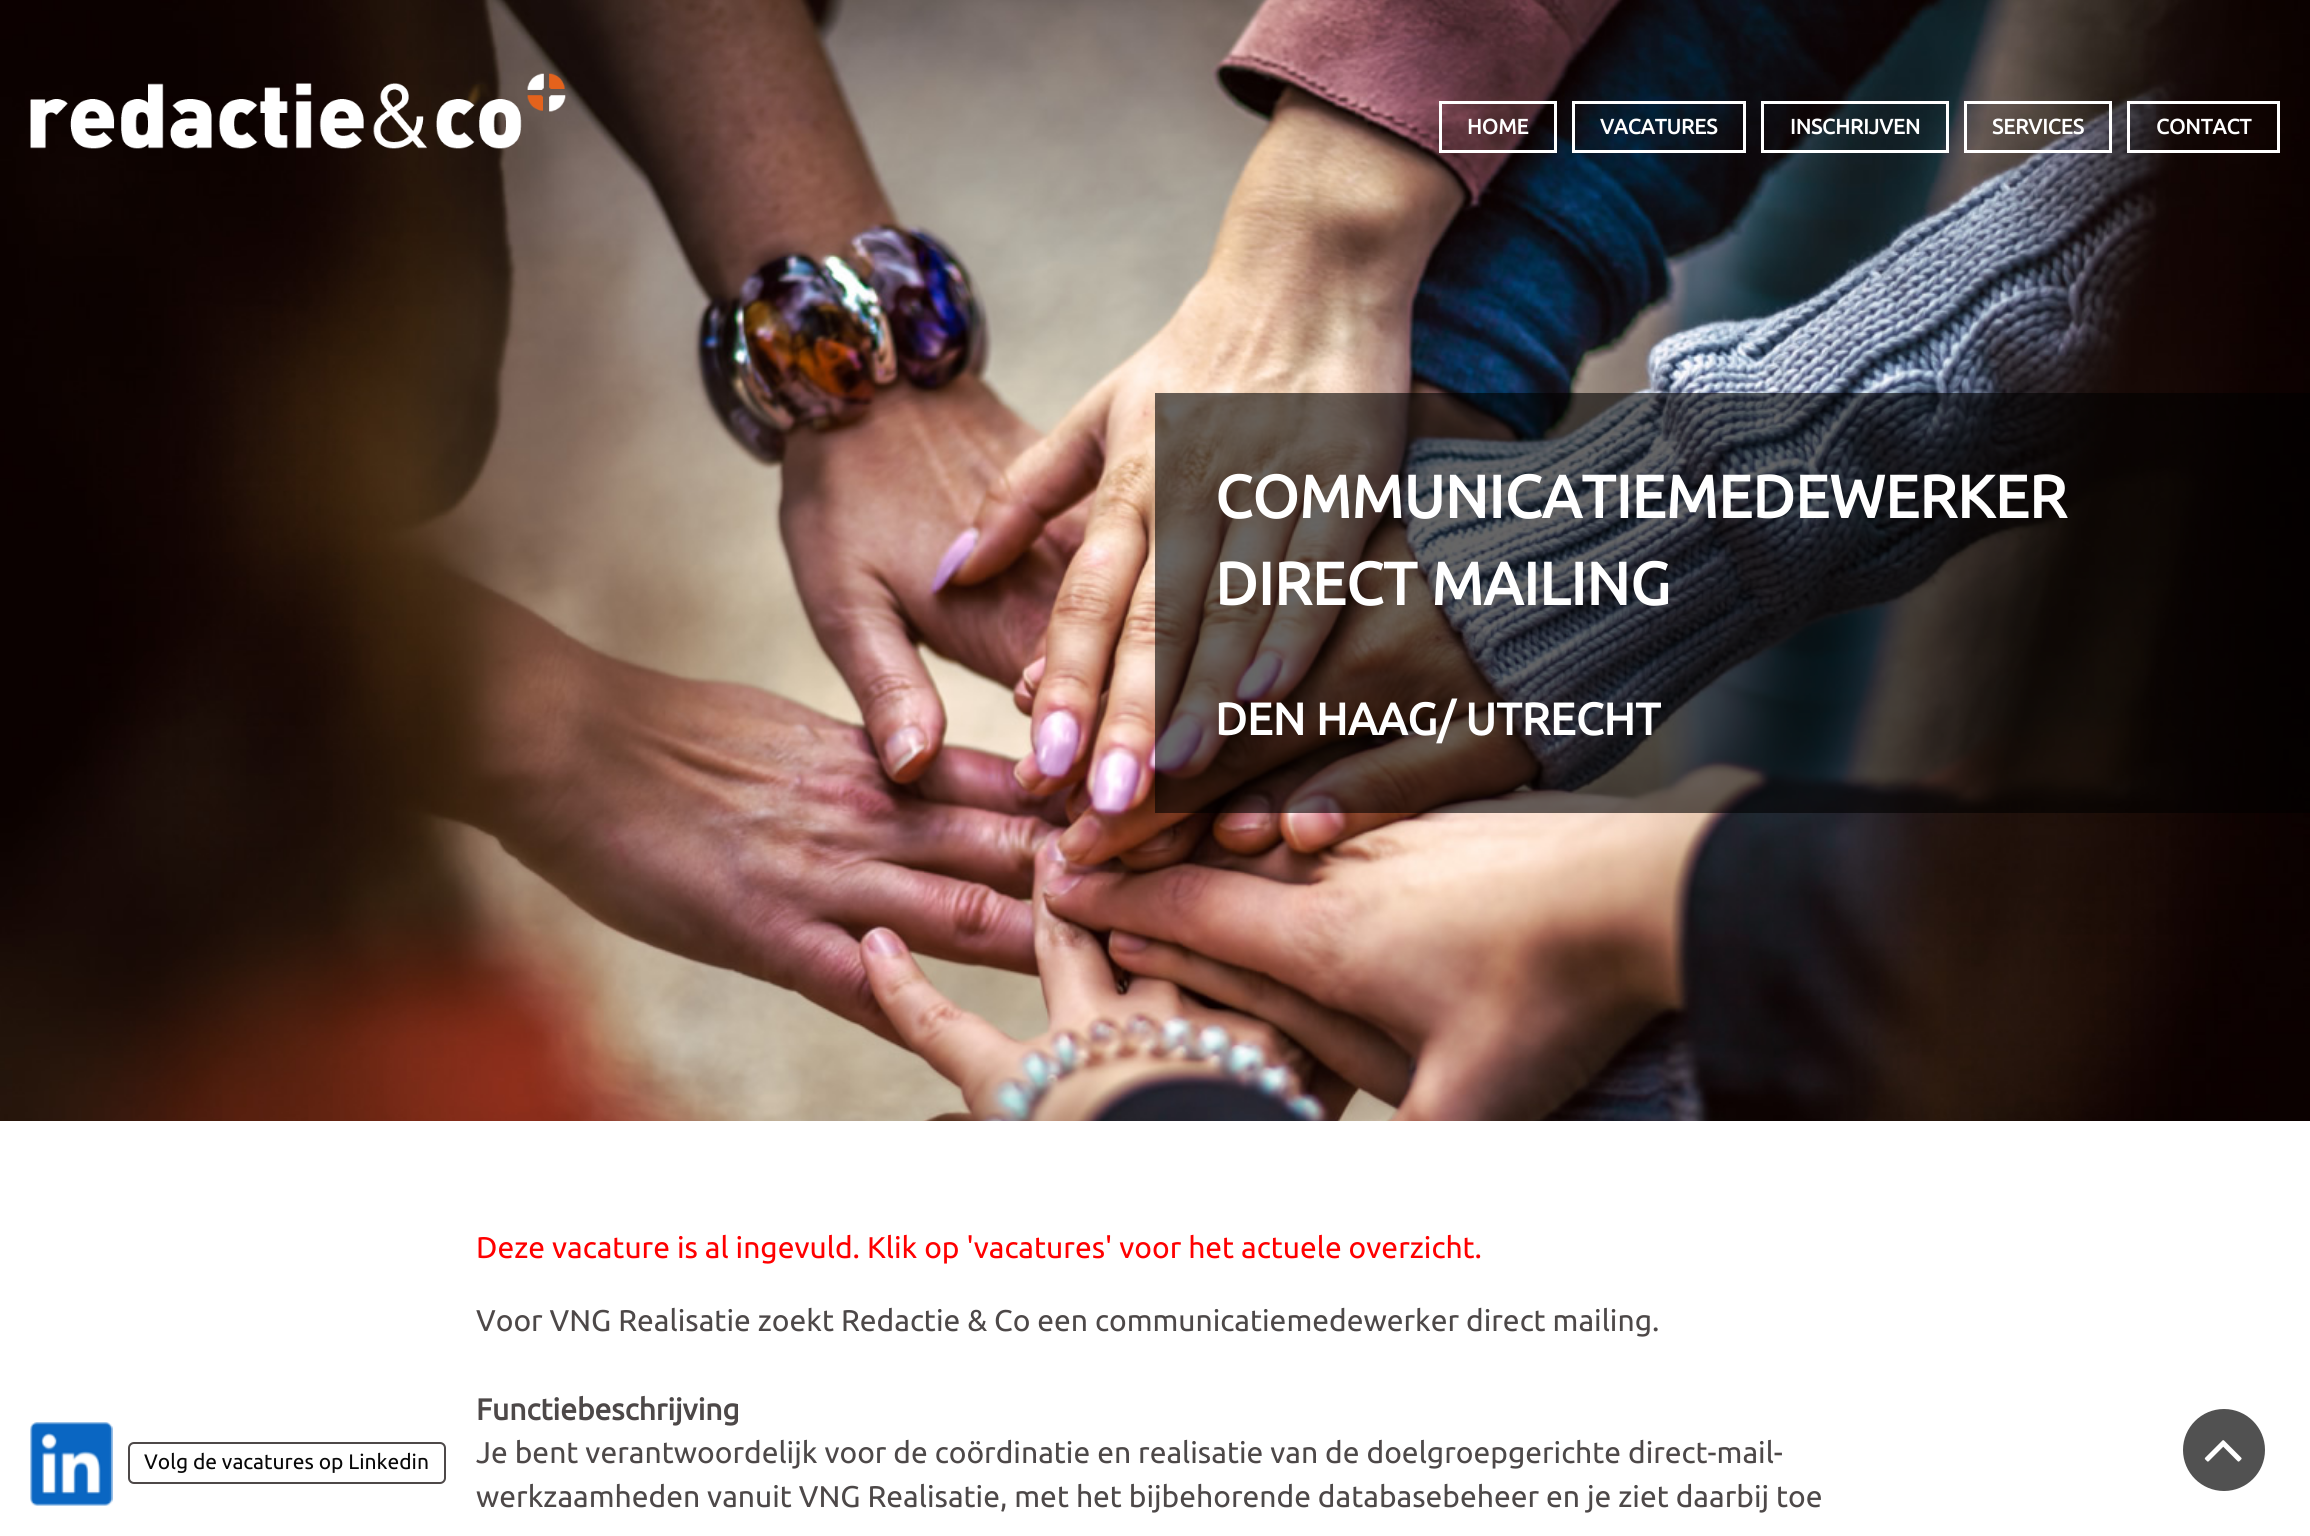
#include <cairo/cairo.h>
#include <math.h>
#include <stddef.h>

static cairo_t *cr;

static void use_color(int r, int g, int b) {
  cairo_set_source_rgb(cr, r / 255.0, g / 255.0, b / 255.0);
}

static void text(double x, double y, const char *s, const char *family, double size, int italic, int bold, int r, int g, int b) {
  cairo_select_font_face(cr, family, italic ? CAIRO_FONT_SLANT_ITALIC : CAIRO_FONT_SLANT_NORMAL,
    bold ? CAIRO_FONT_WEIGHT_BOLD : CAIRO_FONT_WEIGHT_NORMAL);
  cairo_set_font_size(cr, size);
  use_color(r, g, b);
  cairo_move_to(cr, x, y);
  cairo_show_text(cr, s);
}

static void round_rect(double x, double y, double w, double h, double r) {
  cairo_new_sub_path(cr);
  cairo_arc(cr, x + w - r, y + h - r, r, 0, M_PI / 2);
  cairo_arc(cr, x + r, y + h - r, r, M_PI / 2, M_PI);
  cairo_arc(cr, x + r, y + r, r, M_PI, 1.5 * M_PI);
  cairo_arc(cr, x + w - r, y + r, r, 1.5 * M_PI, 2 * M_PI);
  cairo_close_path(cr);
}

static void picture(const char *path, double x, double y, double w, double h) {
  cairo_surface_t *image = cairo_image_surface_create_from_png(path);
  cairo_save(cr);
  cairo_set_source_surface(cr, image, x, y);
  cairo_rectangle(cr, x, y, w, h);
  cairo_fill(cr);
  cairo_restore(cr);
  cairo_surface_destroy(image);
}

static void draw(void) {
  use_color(255, 255, 255);
  cairo_paint(cr);
  picture("img_01.png", 0, 0, 2310, 1121);
  picture("img_02.png", 30, 73, 536, 76);
  cairo_rectangle(cr, 1440.5, 102.5, 115, 49);
  use_color(255, 255, 255);
  cairo_set_line_width(cr, 3);
  cairo_stroke(cr);
  cairo_rectangle(cr, 1573.5, 102.5, 171, 49);
  cairo_stroke(cr);
  cairo_rectangle(cr, 1762.5, 102.5, 185, 49);
  cairo_stroke(cr);
  cairo_rectangle(cr, 1965.5, 102.5, 145, 49);
  cairo_stroke(cr);
  cairo_rectangle(cr, 2128.5, 102.5, 150, 49);
  cairo_stroke(cr);
  cairo_set_source_rgba(cr, 0, 0, 0, 0.6);
  cairo_rectangle(cr, 1155, 393, 1155, 294);
  cairo_fill(cr);
  cairo_rectangle(cr, 1155, 687, 1155, 126);
  cairo_fill(cr);
  picture("img_03.png", 30, 1422, 83, 84);
  round_rect(129, 1443, 316, 40, 5);
  use_color(77, 72, 72);
  cairo_set_line_width(cr, 2);
  cairo_stroke(cr);
  use_color(81, 81, 81);
  cairo_arc(cr, 2224, 1450, 41, 0, 2 * M_PI);
  cairo_fill(cr);
  picture("img_04.png", 2204, 1440, 38, 22);
  text(1467, 134, "HOME", "Ubuntu", 21, 0, 1, 255, 255, 255);
  text(1600, 134, "VACATURES", "Ubuntu", 21, 0, 1, 255, 255, 255);
  text(1790, 134, "INSCHRIJVEN", "Ubuntu", 21, 0, 1, 255, 255, 255);
  text(1992, 134, "SERVICES", "Ubuntu", 21, 0, 1, 255, 255, 255);
  text(2156, 134, "CONTACT", "Ubuntu", 21, 0, 1, 255, 255, 255);
  text(1215, 518, "COMMUNICATIEMEDEWERKER", "Ubuntu", 60, 0, 1, 255, 255, 255);
  text(1215, 605, "DIRECT MAILING", "Ubuntu", 60, 0, 1, 255, 255, 255);
  text(1215, 735, "DEN HAAG/ UTRECHT", "Ubuntu", 45, 0, 1, 255, 255, 255);
  text(144, 1469, "Volg de vacatures op Linkedin", "Ubuntu", 21, 0, 0, 8, 8, 8);
  text(476, 1258, "Deze vacature is al ingevuld. Klik op 'vacatures' voor het actuele overzicht.", "Ubuntu", 30, 0, 0, 255, 0, 0);
  text(476, 1331, "Voor VNG Realisatie zoekt Redactie & Co een communicatiemedewerker direct mailing.", "Ubuntu", 30, 0, 0, 77, 72, 72);
  text(476, 1420, "Functiebeschrijving", "Ubuntu", 30, 0, 1, 77, 72, 72);
  text(476, 1463, "Je bent verantwoordelijk voor de coördinatie en realisatie van de doelgroepgerichte direct-mail-", "Ubuntu", 30, 0, 0, 77, 72, 72);
  text(476, 1507, "werkzaamheden vanuit VNG Realisatie, met het bijbehorende databasebeheer en je ziet daarbij toe", "Ubuntu", 30, 0, 0, 77, 72, 72);
}

int main(void) {
  cairo_surface_t *surface = cairo_image_surface_create(CAIRO_FORMAT_RGB24, 2310, 1536);
  cr = cairo_create(surface);
  cairo_font_options_t *options = cairo_font_options_create();
  cairo_font_options_set_hint_metrics(options, CAIRO_HINT_METRICS_OFF);
  cairo_font_options_set_hint_style(options, CAIRO_HINT_STYLE_NONE);
  cairo_set_font_options(cr, options);
  cairo_set_miter_limit(cr, 4);
  draw();
  cairo_surface_write_to_png(surface, "out.png");
  cairo_font_options_destroy(options);
  cairo_destroy(cr);
  cairo_surface_destroy(surface);
  return 0;
}
